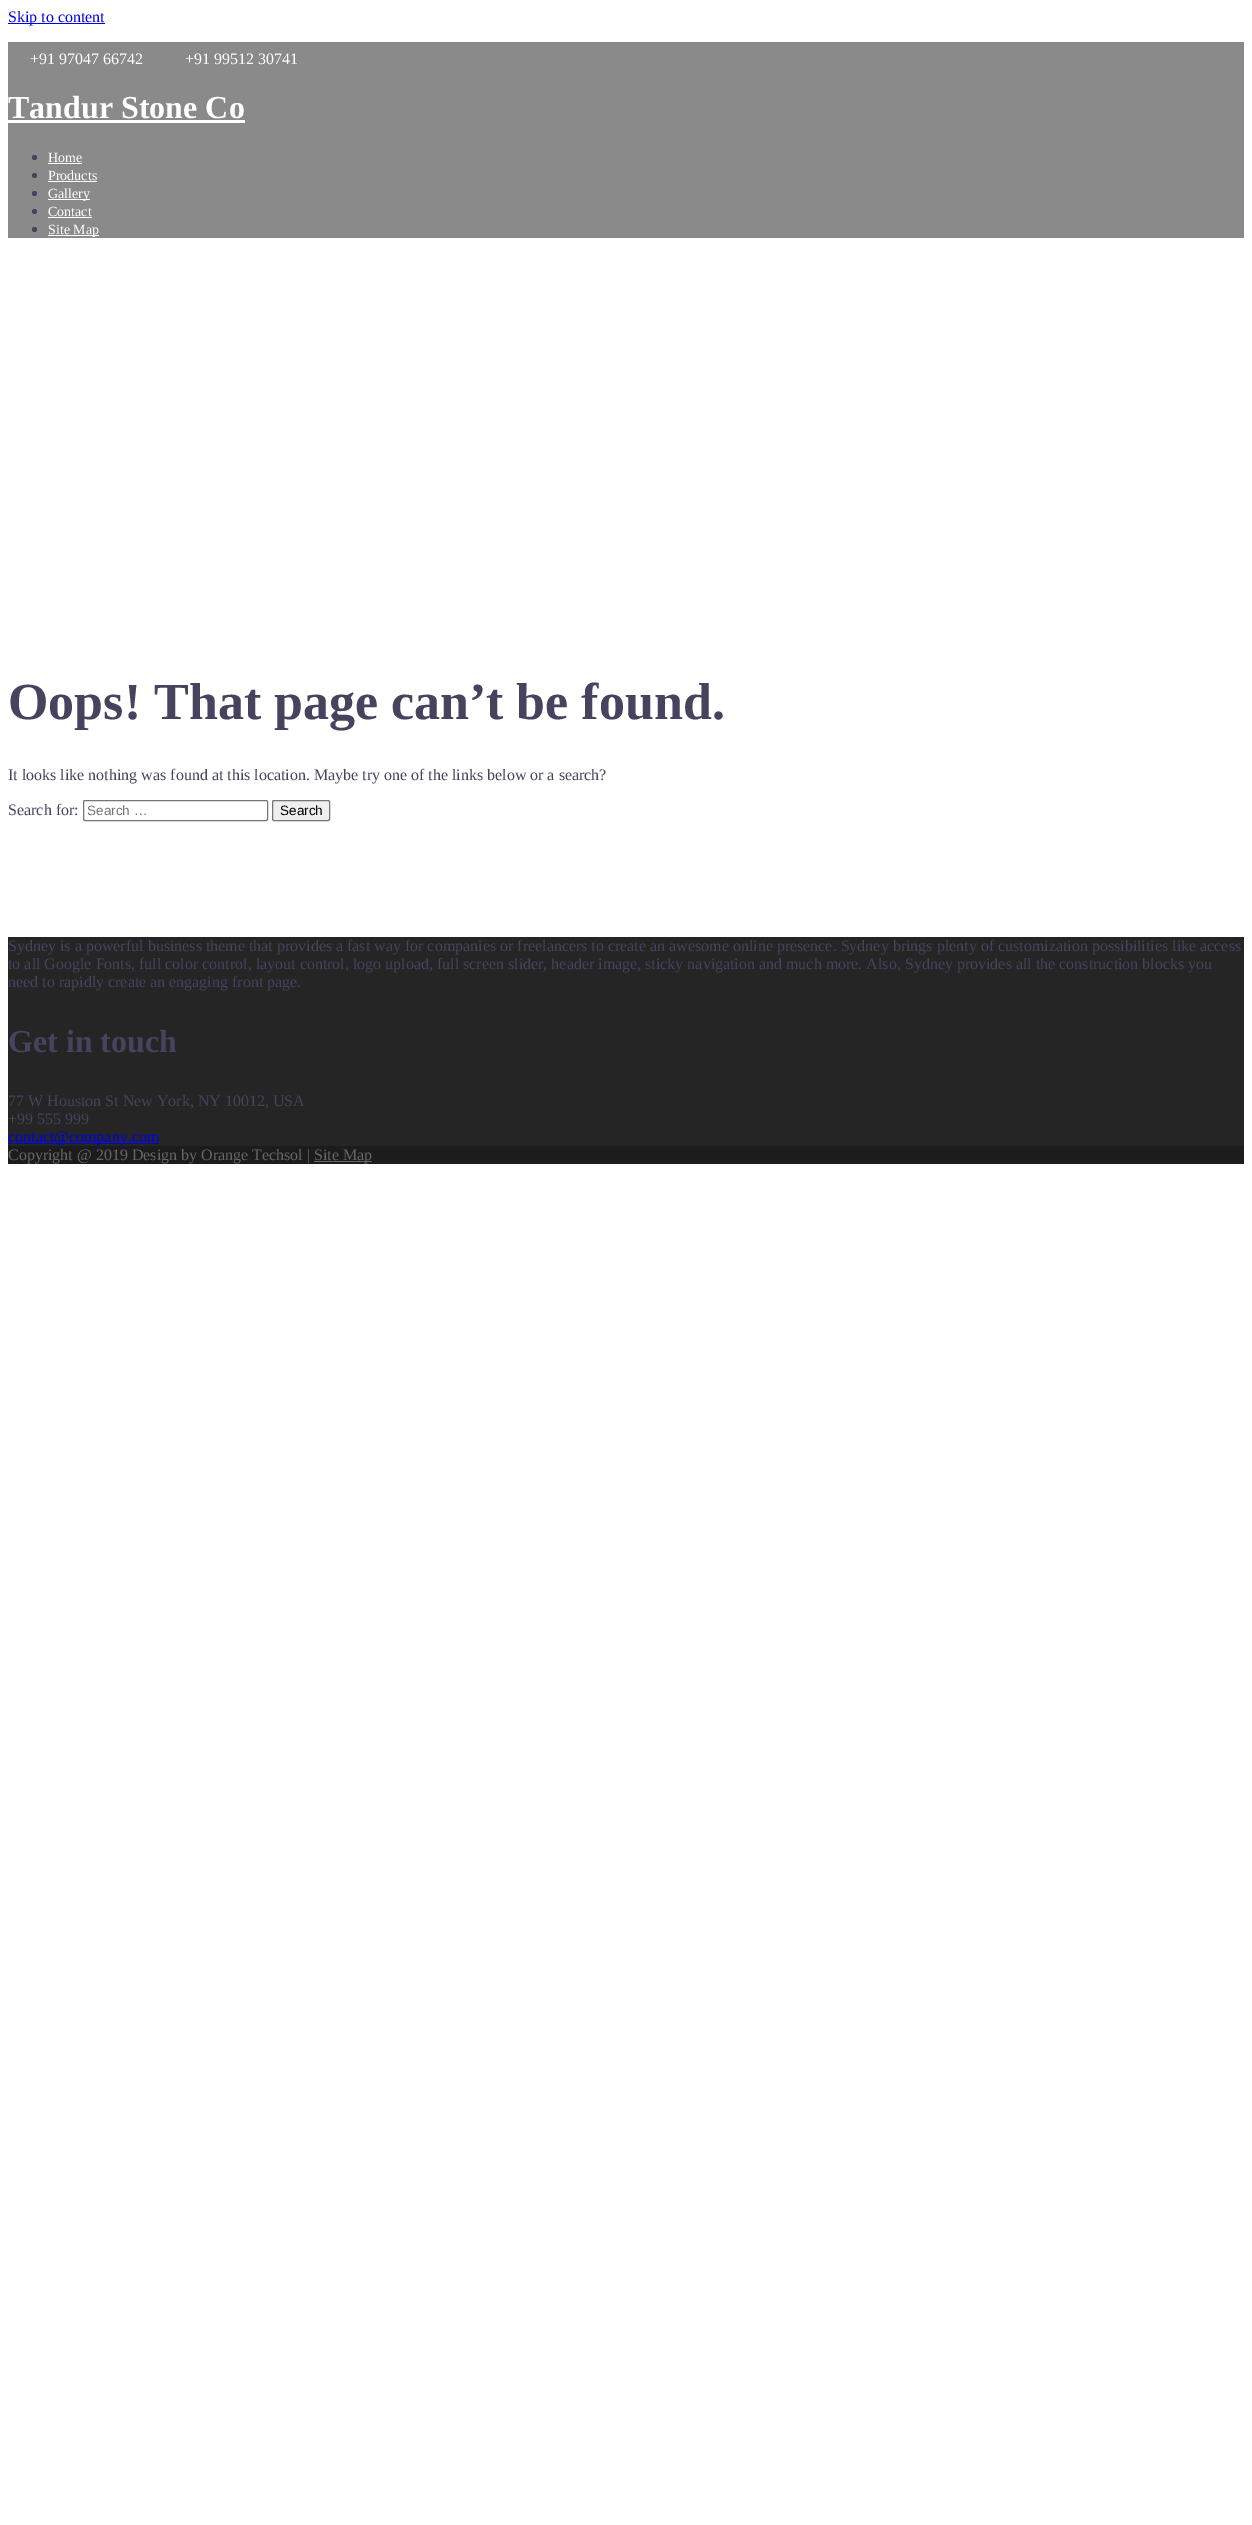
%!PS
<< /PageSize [1252 2525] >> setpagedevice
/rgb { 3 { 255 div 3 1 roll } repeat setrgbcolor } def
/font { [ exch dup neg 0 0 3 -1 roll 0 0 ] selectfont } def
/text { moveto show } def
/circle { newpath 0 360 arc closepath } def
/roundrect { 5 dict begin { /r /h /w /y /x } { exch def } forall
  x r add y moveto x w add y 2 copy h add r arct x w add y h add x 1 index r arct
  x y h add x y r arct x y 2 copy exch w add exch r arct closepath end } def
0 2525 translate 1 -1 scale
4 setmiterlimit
255 255 255 rgb
0 0 1252 2525 rectfill
0 0 238 rgb
8 23 97 1 rectfill
138 138 138 rgb
8 42 1236 196 rectfill
255 255 255 rgb
8 120 237 3 rectfill
71 66 93 rgb
34.5 157.5 2.5 circle fill
255 255 255 rgb
48 163 34 1 rectfill
71 66 93 rgb
34.5 175.5 2.5 circle fill
255 255 255 rgb
48 181 49 1 rectfill
71 66 93 rgb
34.5 193.5 2.5 circle fill
255 255 255 rgb
48 199 42 1 rectfill
71 66 93 rgb
34.5 211.5 2.5 circle fill
255 255 255 rgb
48 217 44 1 rectfill
71 66 93 rgb
34.5 229.5 2.5 circle fill
255 255 255 rgb
48 235 51 1 rectfill
118 118 118 rgb
83.5 800.5 184 20 1.5 roundrect stroke
239 239 239 rgb
272.5 800.5 57 20 1.5 roundrect gsave fill grestore
118 118 118 rgb
stroke
37 37 37 rgb
8 937 1236 209 rectfill
0 0 238 rgb
8 1143 151 1 rectfill
28 28 28 rgb
8 1146 1236 18 rectfill
102 102 102 rgb
314 1161 58 1 rectfill
/LiberationSerif-Regular 16 font
0 0 238 rgb
(Skip to content) 8 22 text
255 255 255 rgb
(+91 97047 66742) 30 64 text
(+91 99512 30741) 185 64 text
/LiberationSerif-Bold 32 font
(Tandur Stone Co) 8 118 text
/LiberationSerif-Regular 14 font
(Home) 48 162 text
(Products) 48 180 text
(Gallery) 48 198 text
(Contact) 48 216 text
(Site Map) 48 234 text
/LiberationSerif-Bold 52 font
71 66 93 rgb
(Oops! That page can’t be found.) 8 719 text
/LiberationSerif-Regular 16 font
(It looks like nothing was found at this location. Maybe try one of the links below or a search?) 8 780 text
(Search for:) 8 815 text
/LiberationSans-Regular 13.5 font
117 117 117 rgb
(Search …) 87 815 text
0 0 0 rgb
(Search) 280 815 text
/LiberationSerif-Regular 16 font
71 66 93 rgb
(Sydney is a powerful business theme that provides a fast way for companies or freelancers to create an awesome online presence. Sydney brings plenty of customization possibilities like access) 8 951 text
(to all Google Fonts, full color control, layout control, logo upload, full screen slider, header image, sticky navigation and much more. Also, Sydney provides all the construction blocks you) 8 969 text
(need to rapidly create an engaging front page.) 8 987 text
/LiberationSerif-Bold 32 font
(Get in touch) 8 1052 text
/LiberationSerif-Regular 16 font
(77 W Houston St New York, NY 10012, USA) 8 1106 text
(+99 555 999) 8 1124 text
0 0 238 rgb
(contact@company.com) 8 1142 text
102 102 102 rgb
(Copyright @ 2019 Design by Orange Techsol |) 8 1160 text
(Site Map) 314 1160 text
showpage
